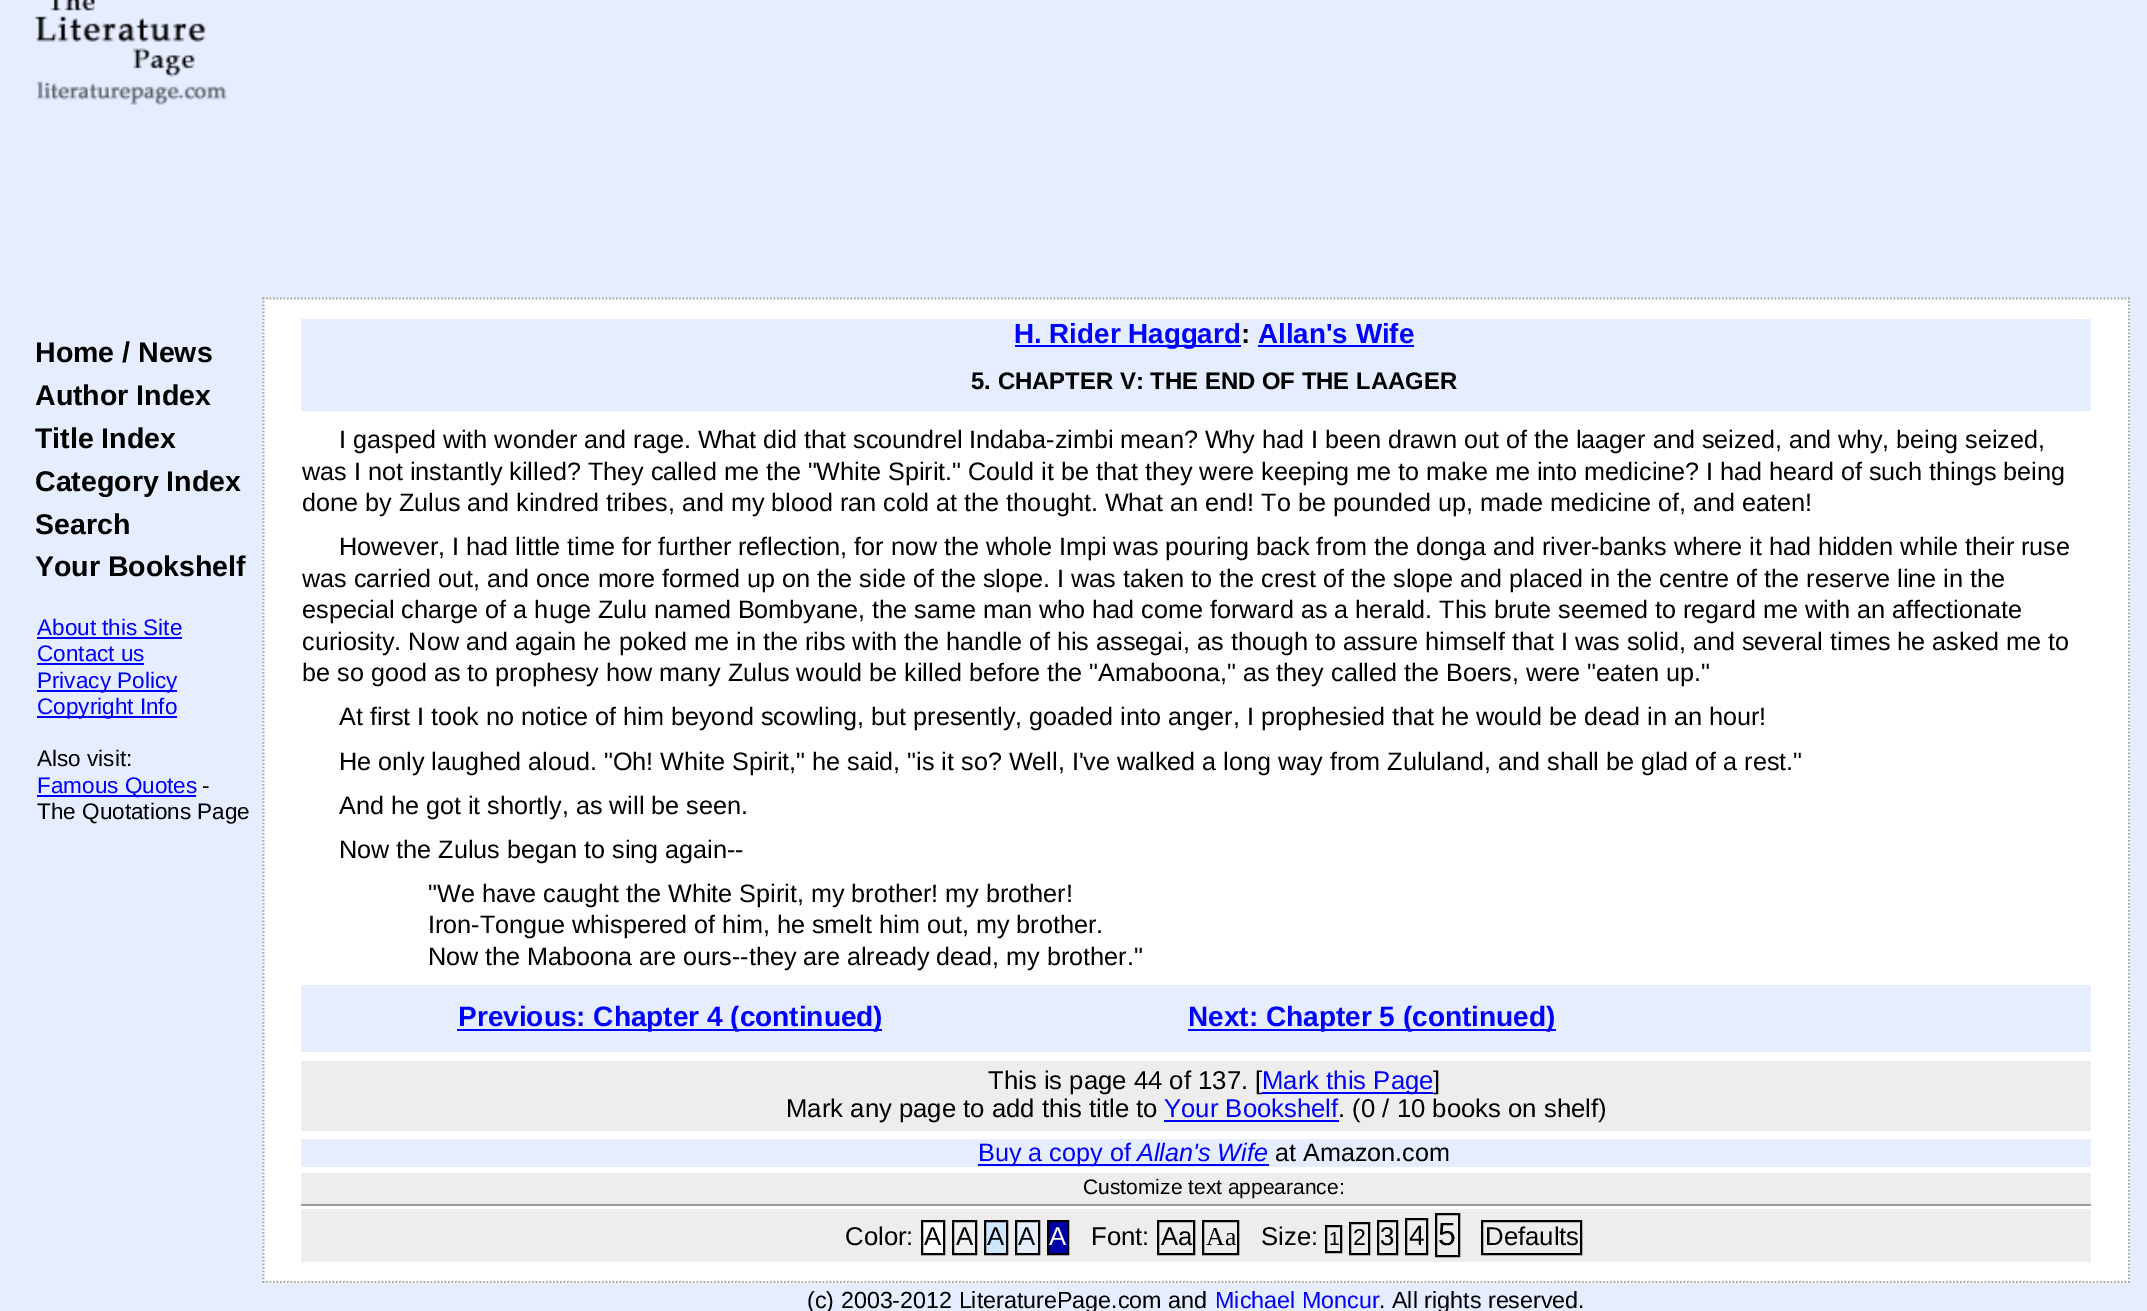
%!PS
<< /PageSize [2147 1311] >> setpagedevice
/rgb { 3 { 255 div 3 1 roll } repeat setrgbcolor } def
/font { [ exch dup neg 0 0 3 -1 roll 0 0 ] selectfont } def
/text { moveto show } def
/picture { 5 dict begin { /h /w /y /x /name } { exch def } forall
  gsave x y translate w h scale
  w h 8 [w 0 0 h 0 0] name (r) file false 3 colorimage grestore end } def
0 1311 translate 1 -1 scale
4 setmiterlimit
230 237 255 rgb
0 0 2147 1311 rectfill
(img_01.rgb) 34 0 194 105 picture
0 0 255 rgb
37 637 145 2 rectfill
37 663 107 2 rectfill
37 690 140 2 rectfill
37 716 140 2 rectfill
37 795 159 2 rectfill
255 255 255 rgb
263 298 1867 985 rectfill
166 173 159 rgb
1.8 setlinewidth
[1.75 1.75] 0 setdash
262.5 298.5 moveto 1867.5 0 rlineto stroke
2129 297.5 moveto 0 985.5 rlineto stroke
262.5 1282 moveto 1867.5 0 rlineto stroke
263.5 297.5 moveto 0 985.5 rlineto stroke
230 237 255 rgb
301 319 1790 92 rectfill
0 0 255 rgb
1015 345 226 2 rectfill
1258 345 156 2 rectfill
230 237 255 rgb
301 985 1790 67 rectfill
0 0 255 rgb
457 1029 425 2 rectfill
1188 1029 368 2 rectfill
237 237 237 rgb
301 1061 1790 70 rectfill
0 0 255 rgb
1262 1092 171 2 rectfill
1164 1120 175 2 rectfill
230 237 255 rgb
301 1139 1790 28 rectfill
0 0 255 rgb
978 1164 291 2 rectfill
237 237 237 rgb
301 1173 1790 31 rectfill
153 153 153 rgb
301 1204 1790 2 rectfill
237 237 237 rgb
301 1209 1790 53 rectfill
255 255 255 rgb
922 1221 moveto 22 0 rlineto 0 33 rlineto -22 0 rlineto closepath gsave fill grestore
0 0 0 rgb
2 setlinewidth
[] 0 setdash
stroke
240 240 240 rgb
953 1221 moveto 23 0 rlineto 0 33 rlineto -23 0 rlineto closepath gsave fill grestore
0 0 0 rgb
stroke
206 231 255 rgb
985 1221 moveto 22 0 rlineto 0 33 rlineto -22 0 rlineto closepath gsave fill grestore
0 0 0 rgb
stroke
230 237 255 rgb
1016 1221 moveto 23 0 rlineto 0 33 rlineto -23 0 rlineto closepath gsave fill grestore
0 0 0 rgb
stroke
0 0 170 rgb
1048 1221 moveto 20 0 rlineto 0 33 rlineto -20 0 rlineto closepath gsave fill grestore
0 0 0 rgb
stroke
1158 1221 36 33 rectstroke
1203 1221 35 33 rectstroke
1326 1226 15 26 rectstroke
1350 1223 19 31 rectstroke
1378 1221 19 33 rectstroke
1406 1219 21 35 rectstroke
1436 1214 23 42 rectstroke
1482 1221 99 33 rectstroke
/LiberationSans-Bold 28.5 font
(Home / News) 35 362 text
(Author Index) 35 405 text
(Title Index) 35 448 text
(Category Index) 35 491 text
(Search) 35 534 text
(Your Bookshelf) 35 576 text
/LiberationSans-Regular 22.5 font
0 0 255 rgb
(About this Site) 37 635 text
(Contact us) 37 661 text
(Privacy Policy) 37 688 text
(Copyright Info) 37 714 text
0 0 0 rgb
(Also visit:) 37 766 text
0 0 255 rgb
(Famous Quotes) 37 793 text
0 0 0 rgb
(-) 202 793 text
(The Quotations Page) 37 819 text
/LiberationSans-Bold 27.75 font
0 0 255 rgb
(H. Rider Haggard) 1014 343 text
0 0 0 rgb
(:) 1241 343 text
0 0 255 rgb
(Allan's Wife) 1258 343 text
/LiberationSans-Bold 23.9 font
0 0 0 rgb
(5. CHAPTER V: THE END OF THE LAAGER) 971 389 text
/LiberationSans-Regular 25.2 font
(I gasped with wonder and rage. What did that scoundrel Indaba-zimbi mean? Why had I been drawn out of the laager and seized, and why, being seized,) 339 448 text
(was I not instantly killed? They called me the "White Spirit." Could it be that they were keeping me to make me into medicine? I had heard of such things being) 302 480 text
(done by Zulus and kindred tribes, and my blood ran cold at the thought. What an end! To be pounded up, made medicine of, and eaten!) 302 511 text
(However, I had little time for further reflection, for now the whole Impi was pouring back from the donga and river-banks where it had hidden while their ruse) 339 555 text
(was carried out, and once more formed up on the side of the slope. I was taken to the crest of the slope and placed in the centre of the reserve line in the) 302 587 text
(especial charge of a huge Zulu named Bombyane, the same man who had come forward as a herald. This brute seemed to regard me with an affectionate) 302 618 text
(curiosity. Now and again he poked me in the ribs with the handle of his assegai, as though to assure himself that I was solid, and several times he asked me to) 302 650 text
(be so good as to prophesy how many Zulus would be killed before the "Amaboona," as they called the Boers, were "eaten up.") 302 681 text
(At first I took no notice of him beyond scowling, but presently, goaded into anger, I prophesied that he would be dead in an hour!) 339 725 text
(He only laughed aloud. "Oh! White Spirit," he said, "is it so? Well, I've walked a long way from Zululand, and shall be glad of a rest.") 339 770 text
(And he got it shortly, as will be seen.) 339 814 text
(Now the Zulus began to sing again--) 339 858 text
("We have caught the White Spirit, my brother! my brother!) 428 902 text
(Iron-Tongue whispered of him, he smelt him out, my brother.) 428 933 text
(Now the Maboona are ours--they are already dead, my brother.") 428 965 text
/LiberationSans-Bold 28 font
0 0 255 rgb
(Previous: Chapter 4 \(continued\)) 458 1026 text
(Next: Chapter 5 \(continued\)) 1188 1026 text
/LiberationSans-Regular 25.7 font
0 0 0 rgb
(This is page 44 of 137. [) 988 1089 text
0 0 255 rgb
(Mark this Page) 1262 1089 text
0 0 0 rgb
(]) 1433 1089 text
(Mark any page to add this title to) 786 1117 text
0 0 255 rgb
(Your Bookshelf) 1164 1117 text
0 0 0 rgb
(. \(0 / 10 books on shelf\)) 1338 1117 text
/LiberationSans-Regular 25.2 font
0 0 255 rgb
(Buy a copy of) 978 1161 text
/LiberationSans-Italic 25.2 font
(Allan's Wife) 1137 1161 text
/LiberationSans-Regular 25.2 font
0 0 0 rgb
(at Amazon.com) 1275 1161 text
/LiberationSans-Regular 21 font
(Customize text appearance:) 1083 1194 text
/LiberationSans-Regular 25.7 font
(Color:) 845 1245 text
(A) 924 1245 text
(A) 956 1245 text
(A) 987 1245 text
(A) 1018 1245 text
255 255 255 rgb
(A) 1049 1245 text
0 0 0 rgb
(Font:) 1091 1245 text
(Aa) 1161 1245 text
/LiberationSerif-Regular 25.7 font
(Aa) 1206 1245 text
/LiberationSans-Regular 25.7 font
(Size:) 1261 1245 text
/LiberationSans-Regular 19 font
(1) 1329 1245 text
/LiberationSans-Regular 23 font
(2) 1353 1245 text
/LiberationSans-Regular 25.7 font
(3) 1380 1245 text
/LiberationSans-Regular 28 font
(4) 1409 1245 text
/LiberationSans-Regular 32 font
(5) 1438 1245 text
/LiberationSans-Regular 25.7 font
(Defaults) 1485 1245 text
/LiberationSans-Regular 23.3 font
(\(c\) 2003-2012 LiteraturePage.com and) 807 1308 text
0 0 255 rgb
(Michael Moncur) 1215 1308 text
0 0 0 rgb
(. All rights reserved.) 1379 1308 text
showpage
